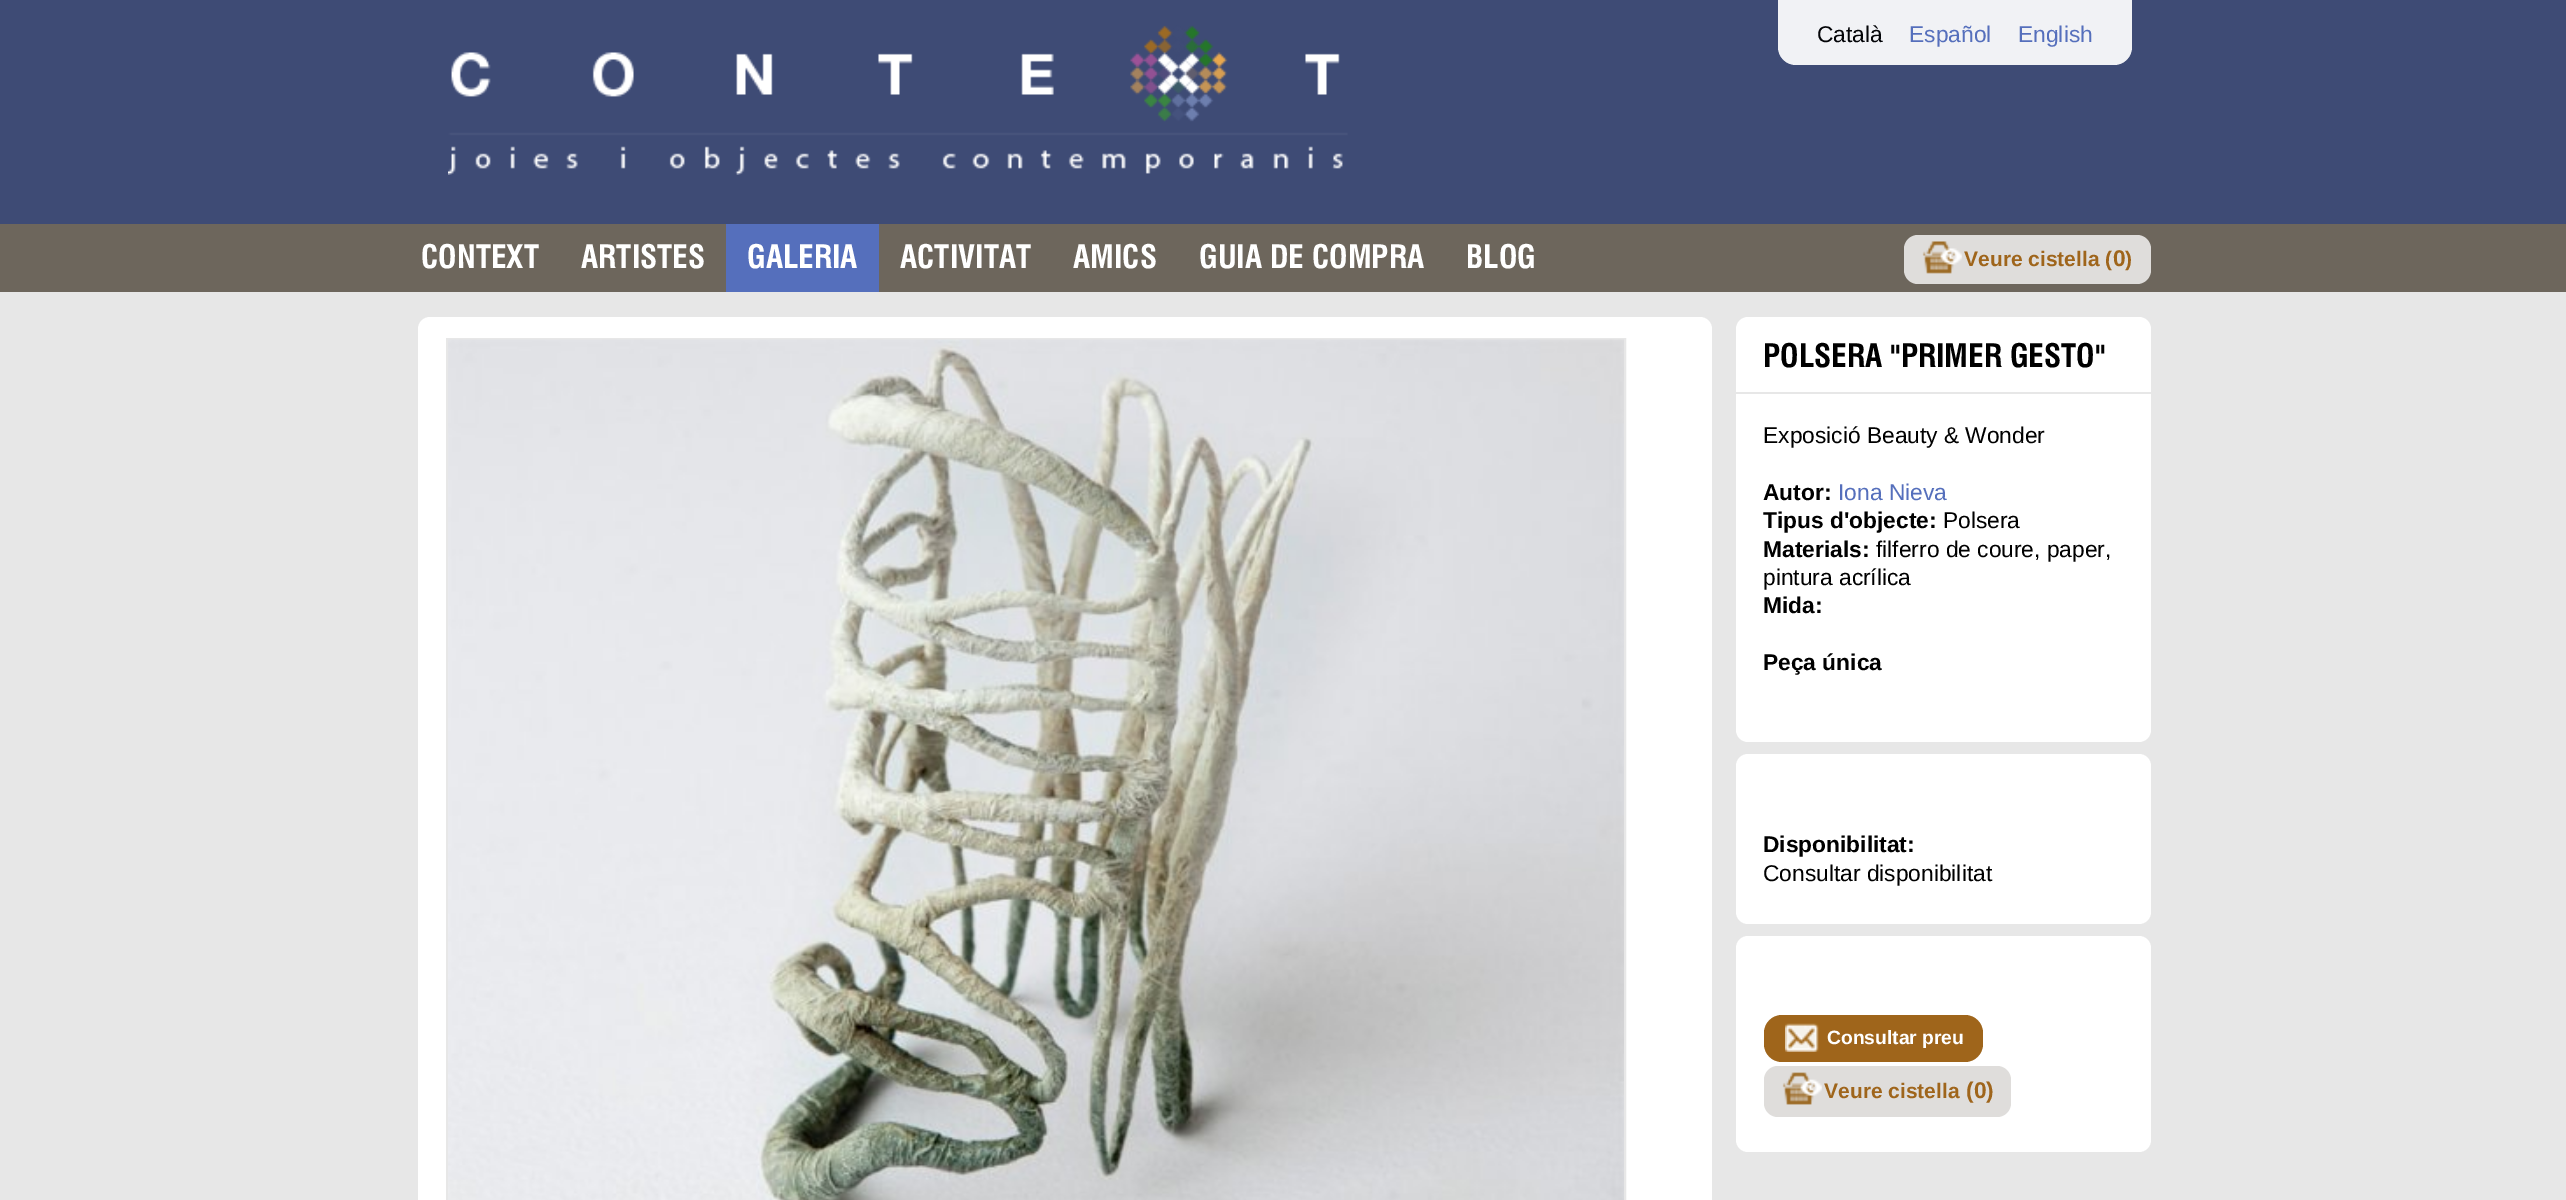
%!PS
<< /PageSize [2566 1200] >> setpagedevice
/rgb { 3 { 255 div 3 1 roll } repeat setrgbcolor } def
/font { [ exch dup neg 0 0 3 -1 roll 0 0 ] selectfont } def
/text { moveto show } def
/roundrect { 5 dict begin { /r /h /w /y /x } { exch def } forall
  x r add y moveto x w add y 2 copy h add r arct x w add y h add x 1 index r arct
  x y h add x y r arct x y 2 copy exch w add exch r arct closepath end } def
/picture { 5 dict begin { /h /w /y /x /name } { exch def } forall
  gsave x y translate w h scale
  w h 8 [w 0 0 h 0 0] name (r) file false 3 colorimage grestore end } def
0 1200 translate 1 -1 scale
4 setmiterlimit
231 231 231 rgb
0 0 2566 1200 rectfill
62 75 117 rgb
0 0 2566 224 rectfill
(img_01.rgb) 448 25 900 150 picture
241 242 245 rgb
1778 0 moveto 354 0 rlineto 0 47 rlineto 0 10 -8 18 -18 18 rcurveto -318 0 rlineto -10 0 -18 -8 -18 -18 rcurveto closepath fill
109 102 92 rgb
0 224 2566 68 rectfill
85 111 188 rgb
726 224 153 68 rectfill
223 221 219 rgb
1904 235 247 49 14 roundrect fill
(img_02.rgb) 1922 241 40 33 picture
255 255 255 rgb
418 317 1294 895 12 roundrect fill
231 231 231 rgb
2 setlinewidth
447 339 1178 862 rectstroke
(img_03.rgb) 448 339 1176 861 picture
255 255 255 rgb
1748 317 moveto 391 0 rlineto 6.5 0 12 5.5 12 12 rcurveto 0 63 rlineto -415 0 rlineto 0 -63 rlineto 0 -6.5 5.5 -12 12 -12 rcurveto closepath fill
1736 394 moveto 415 0 rlineto 0 336 rlineto 0 6.5 -5.5 12 -12 12 rcurveto -391 0 rlineto -6.5 0 -12 -5.5 -12 -12 rcurveto closepath fill
1736 754 415 170 12 roundrect fill
1736 936 415 216 12 roundrect fill
159 101 27 rgb
1764 1015 219 47 18 roundrect fill
(img_04.rgb) 1785 1023 34 29 picture
223 221 219 rgb
1764 1066 247 51 14 roundrect fill
(img_05.rgb) 1782 1072 40 33 picture
/LiberationSans-Regular 22.75 font
4 5 8 rgb
(Català) 1817 42 text
85 111 188 rgb
(Español) 1909 42 text
(English) 2018 42 text
/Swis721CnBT-Bold 31.5 font
255 255 255 rgb
(CONTEXT) 421 268 text
(ARTISTES) 581 268 text
(GALERIA) 747 268 text
(ACTIVITAT) 900 268 text
(AMICS) 1073 268 text
(GUIA DE COMPRA) 1199 268 text
(BLOG) 1466 268 text
/LiberationSans-Bold 21 font
159 101 27 rgb
(Veure cistella \() 1964 266 text
/LiberationSans-Bold 22.75 font
(0) 2113 266 text
/LiberationSans-Bold 21 font
(\)) 2125 266 text
/Swis721CnBT-Bold 31.5 font
0 0 0 rgb
(POLSERA "PRIMER GESTO") 1763 367 text
/LiberationSans-Regular 22.75 font
(Exposició Beauty & Wonder) 1763 443 text
/LiberationSans-Bold 22.75 font
(Autor:) 1763 500 text
/LiberationSans-Regular 22.75 font
85 111 188 rgb
(Iona Nieva) 1838 500 text
/LiberationSans-Bold 22.75 font
0 0 0 rgb
(Tipus d'objecte:) 1763 528 text
/LiberationSans-Regular 22.75 font
(Polsera) 1943 528 text
/LiberationSans-Bold 22.75 font
(Materials:) 1763 557 text
/LiberationSans-Regular 22.75 font
(filferro de coure, paper,) 1876 557 text
(pintura acrílica) 1763 585 text
/LiberationSans-Bold 22.75 font
(Mida:) 1763 613 text
(Peça única) 1763 670 text
(Disponibilitat:) 1763 852 text
/LiberationSans-Regular 22.75 font
(Consultar disponibilitat) 1763 881 text
/LiberationSans-Bold 19.25 font
255 255 255 rgb
(Consultar preu) 1827 1044 text
/LiberationSans-Bold 21 font
159 101 27 rgb
(Veure cistella) 1824 1098 text
/LiberationSans-Bold 22.75 font
(\(0\)) 1966 1098 text
showpage
